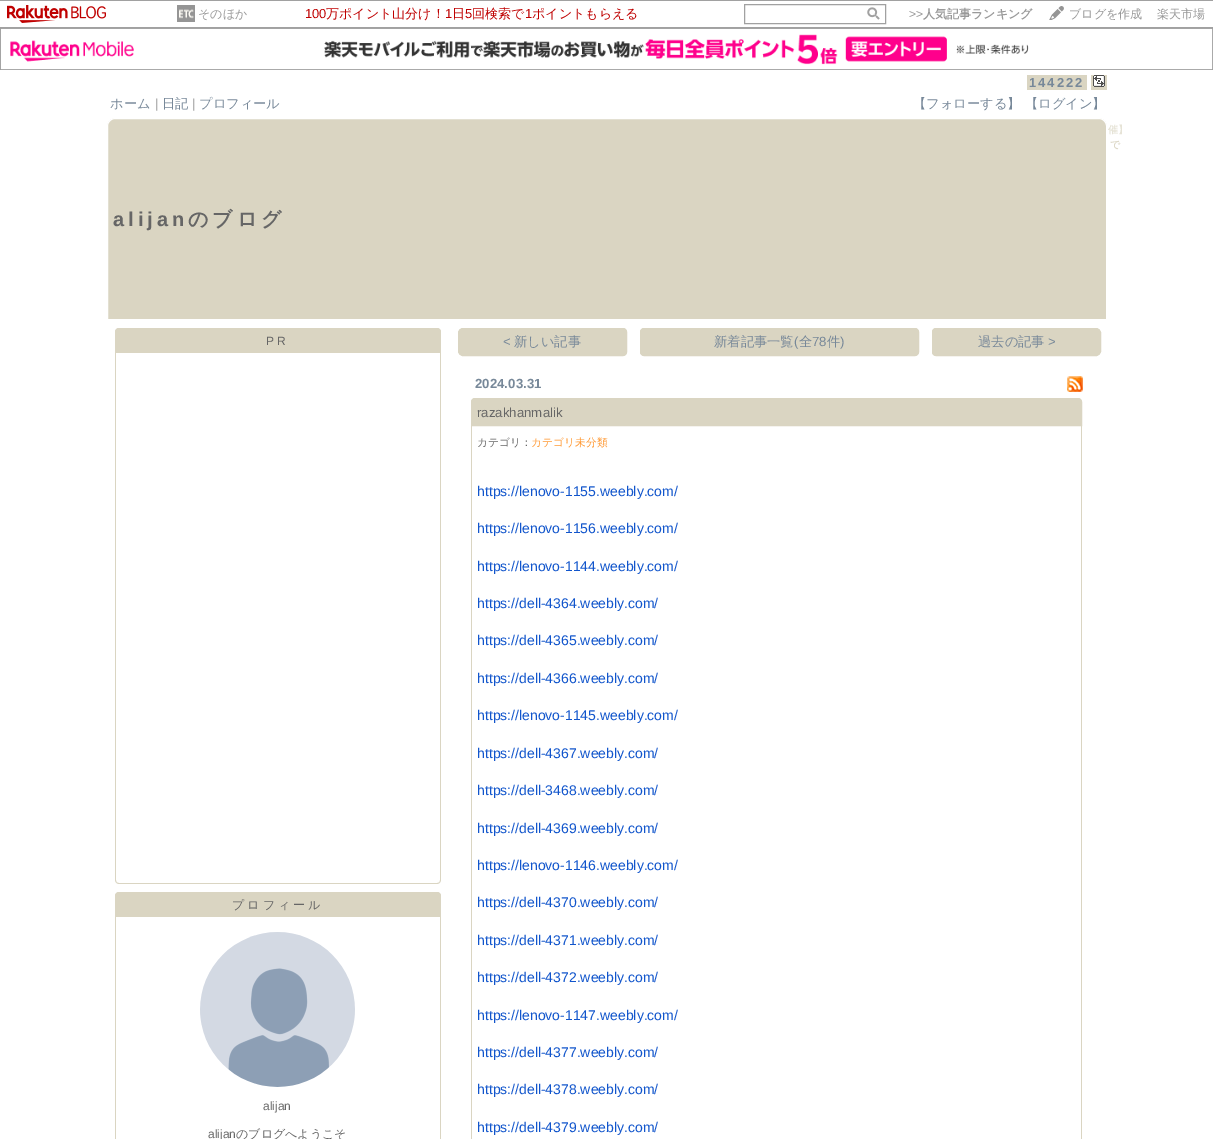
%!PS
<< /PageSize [1213 1139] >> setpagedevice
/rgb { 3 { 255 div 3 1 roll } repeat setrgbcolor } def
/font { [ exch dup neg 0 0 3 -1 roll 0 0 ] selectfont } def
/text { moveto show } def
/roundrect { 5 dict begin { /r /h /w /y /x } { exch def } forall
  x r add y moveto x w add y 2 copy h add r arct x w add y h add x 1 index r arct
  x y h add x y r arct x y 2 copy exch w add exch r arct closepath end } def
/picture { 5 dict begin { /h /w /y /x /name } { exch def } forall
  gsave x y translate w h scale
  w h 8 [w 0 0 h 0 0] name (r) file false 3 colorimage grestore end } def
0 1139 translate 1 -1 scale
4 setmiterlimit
255 255 255 rgb
0 0 1213 1139 rectfill
161 161 161 rgb
0 0 1213 1 rectfill
0 27 1213 1 rectfill
(img_01.rgb) 7 5 99 18 picture
(img_02.rgb) 177 5 18 17 picture
744.5 4.5 141 19 rectstroke
(img_03.rgb) 867 7 13 13 picture
(img_04.rgb) 1049 6 15 14 picture
(img_05.rgb) 0 28 1213 42 picture
218 213 194 rgb
1091 75 16 15 rectfill
1027 75 60 15 rectfill
(img_06.rgb) 1093 75 12 12 picture
115 118.5 moveto 984 0 rlineto 4 0 7.5 3.5 7.5 7.5 rcurveto 0 193.5 rlineto -999 0 rlineto 0 -193.5 rlineto 0 -4 3.5 -7.5 7.5 -7.5 rcurveto closepath gsave fill grestore
255 255 255 rgb
stroke
218 213 194 rgb
119 328 moveto 318 0 rlineto 2 0 4 2 4 4 rcurveto 0 21 rlineto -326 0 rlineto 0 -21 rlineto 0 -2 2 -4 4 -4 rcurveto closepath fill
119 328 moveto 318 0 rlineto 2 0 4 2 4 4 rcurveto 0 21 rlineto -326 0 rlineto 0 -21 rlineto 0 -2 2 -4 4 -4 rcurveto closepath 119 329 moveto 318 0 rlineto 2 0 3 1 3 3 rcurveto 0 21 rlineto -324 0 rlineto 0 -21 rlineto 0 -2 1 -3 3 -3 rcurveto closepath eofill
115 353 moveto 326 0 rlineto 0 527 rlineto 0 2 -2 4 -4 4 rcurveto -318 0 rlineto -2 0 -4 -2 -4 -4 rcurveto closepath 116 353 moveto 324 0 rlineto 0 527 rlineto 0 2 -1 3 -3 3 rcurveto -318 0 rlineto -2 0 -3 -1 -3 -3 rcurveto closepath eofill
119 892 moveto 318 0 rlineto 2 0 4 2 4 4 rcurveto 0 21 rlineto -326 0 rlineto 0 -21 rlineto 0 -2 2 -4 4 -4 rcurveto closepath fill
119 892 moveto 318 0 rlineto 2 0 4 2 4 4 rcurveto 0 21 rlineto -326 0 rlineto 0 -21 rlineto 0 -2 2 -4 4 -4 rcurveto closepath 119 893 moveto 318 0 rlineto 2 0 3 1 3 3 rcurveto 0 21 rlineto -324 0 rlineto 0 -21 rlineto 0 -2 1 -3 3 -3 rcurveto closepath eofill
115 917 moveto 326 0 rlineto 0 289 rlineto 0 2 -2 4 -4 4 rcurveto -318 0 rlineto -2 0 -4 -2 -4 -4 rcurveto closepath 116 917 moveto 324 0 rlineto 0 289 rlineto 0 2 -1 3 -3 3 rcurveto -318 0 rlineto -2 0 -3 -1 -3 -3 rcurveto closepath eofill
(img_07.rgb) 200 932 155 155 picture
463 328.5 moveto 160 0 rlineto 2 0 3.5 1.5 3.5 3.5 rcurveto 0 20 rlineto 0 2 -1.5 3.5 -3.5 3.5 rcurveto -160 0 rlineto -2.5 0 -4.5 -2 -4.5 -4.5 rcurveto 0 -18 rlineto 0 -2.5 2 -4.5 4.5 -4.5 rcurveto closepath gsave fill grestore
stroke
640.5 328.5 278 27 3.5 roundrect gsave fill grestore
stroke
936 328.5 moveto 160 0 rlineto 2.5 0 4.5 2 4.5 4.5 rcurveto 0 18 rlineto 0 2.5 -2 4.5 -4.5 4.5 rcurveto -160 0 rlineto -2 0 -3.5 -1.5 -3.5 -3.5 rcurveto 0 -20 rlineto 0 -2 1.5 -3.5 3.5 -3.5 rcurveto closepath gsave fill grestore
stroke
(img_08.rgb) 1067 376 16 16 picture
475 398.5 moveto 603 0 rlineto 2 0 3.5 1.5 3.5 3.5 rcurveto 0 23.5 rlineto -610 0 rlineto 0 -23.5 rlineto 0 -2 1.5 -3.5 3.5 -3.5 rcurveto closepath gsave fill grestore
stroke
471 426 moveto 611 0 rlineto 0 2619 rlineto 0 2 -2 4 -4 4 rcurveto -603 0 rlineto -2 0 -4 -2 -4 -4 rcurveto closepath 472 426 moveto 609 0 rlineto 0 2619 rlineto 0 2 -1 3 -3 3 rcurveto -603 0 rlineto -2 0 -3 -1 -3 -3 rcurveto closepath eofill
/WenQuanYiZenHei-Medium 12 font
153 153 153 rgb
(そのほか) 198 18 text
/LiberationSans-Regular 13 font
191 0 0 rgb
(100) 305 18 text
/WenQuanYiZenHei-Medium 13 font
(万ポイント山分け！) 326 18 text
/LiberationSans-Regular 13 font
(1) 445 18 text
/WenQuanYiZenHei-Medium 13 font
(日) 452 18 text
/LiberationSans-Regular 13 font
(5) 465 18 text
/WenQuanYiZenHei-Medium 13 font
(回検索で) 472 18 text
/LiberationSans-Regular 13 font
(1) 525 18 text
/WenQuanYiZenHei-Medium 13 font
(ポイントもらえる) 532 18 text
/LiberationSans-Regular 12 font
153 153 153 rgb
(>>) 909 18 text
/WenQuanYiZenHei-Bold 12 font
(人気記事ランキング) 923 18 text
/WenQuanYiZenHei-Medium 12 font
(ブログを作成) 1069 18 text
(楽天市場) 1157 18 text
/LiberationSans-Bold 13 font
119 136 153 rgb
1029 87 moveto 2 0 (144222) ashow
/WenQuanYiZenHei-Medium 13.25 font
(ホーム) 110 108 text
/LiberationSans-Regular 13.25 font
153 153 153 rgb
(|) 155 108 text
/WenQuanYiZenHei-Medium 13.25 font
119 136 153 rgb
(日記) 162 108 text
/LiberationSans-Regular 13.25 font
153 153 153 rgb
(|) 192 108 text
/WenQuanYiZenHei-Medium 13.25 font
119 136 153 rgb
(プロフィール) 199 108 text
(【フォローする】) 913 108 text
(【ログイン】) 1025 108 text
/WenQuanYiZenHei-Bold 10 font
230 227 214 rgb
(催】) 1108 133 text
222 217 200 rgb
(で) 1110 148 text
/LiberationSans-Bold 20 font
102 102 102 rgb
113 226 moveto 4 0 (alijan) ashow
/WenQuanYiZenHei-Bold 20 font
188 226 moveto 4 0 (のブログ) ashow
/LiberationSans-Regular 12 font
266 345 moveto 3 0 (PR) ashow
/WenQuanYiZenHei-Medium 12 font
232 909 moveto 3 0 (プロフィール) ashow
/LiberationSans-Regular 12 font
(alijan) 263 1110 text
(alijan) 208 1138 text
/WenQuanYiZenHei-Medium 12 font
(のブログへようこそ) 236 1138 text
/LiberationSans-Regular 13.25 font
119 136 153 rgb
(<) 503 346 text
/WenQuanYiZenHei-Medium 13.25 font
(新しい記事) 514 346 text
(新着記事一覧) 714 346 text
/LiberationSans-Regular 13.25 font
(\() 794 346 text
/WenQuanYiZenHei-Medium 13.25 font
(全) 799 346 text
/LiberationSans-Regular 13.25 font
(78) 812 346 text
/WenQuanYiZenHei-Medium 13.25 font
(件) 827 346 text
/LiberationSans-Regular 13.25 font
(\)) 840 346 text
/WenQuanYiZenHei-Medium 13.25 font
(過去の記事) 978 346 text
/LiberationSans-Regular 13.25 font
(>) 1048 346 text
/LiberationSans-Bold 13.25 font
(2024.03.31) 475 388 text
/LiberationSans-Regular 13.25 font
102 102 102 rgb
(razakhanmalik) 477 417 text
/WenQuanYiZenHei-Medium 10.75 font
(カテゴリ：) 477 446 text
255 153 51 rgb
(カテゴリ未分類) 531 446 text
/LiberationSans-Regular 14 font
17 85 204 rgb
(https://lenovo-1155.weebly.com/) 477 496 text
(https://lenovo-1156.weebly.com/) 477 533 text
(https://lenovo-1144.weebly.com/) 477 571 text
(https://dell-4364.weebly.com/) 477 608 text
(https://dell-4365.weebly.com/) 477 645 text
(https://dell-4366.weebly.com/) 477 683 text
(https://lenovo-1145.weebly.com/) 477 720 text
(https://dell-4367.weebly.com/) 477 758 text
(https://dell-3468.weebly.com/) 477 795 text
(https://dell-4369.weebly.com/) 477 833 text
(https://lenovo-1146.weebly.com/) 477 870 text
(https://dell-4370.weebly.com/) 477 907 text
(https://dell-4371.weebly.com/) 477 945 text
(https://dell-4372.weebly.com/) 477 982 text
(https://lenovo-1147.weebly.com/) 477 1020 text
(https://dell-4377.weebly.com/) 477 1057 text
(https://dell-4378.weebly.com/) 477 1094 text
(https://dell-4379.weebly.com/) 477 1132 text
showpage
